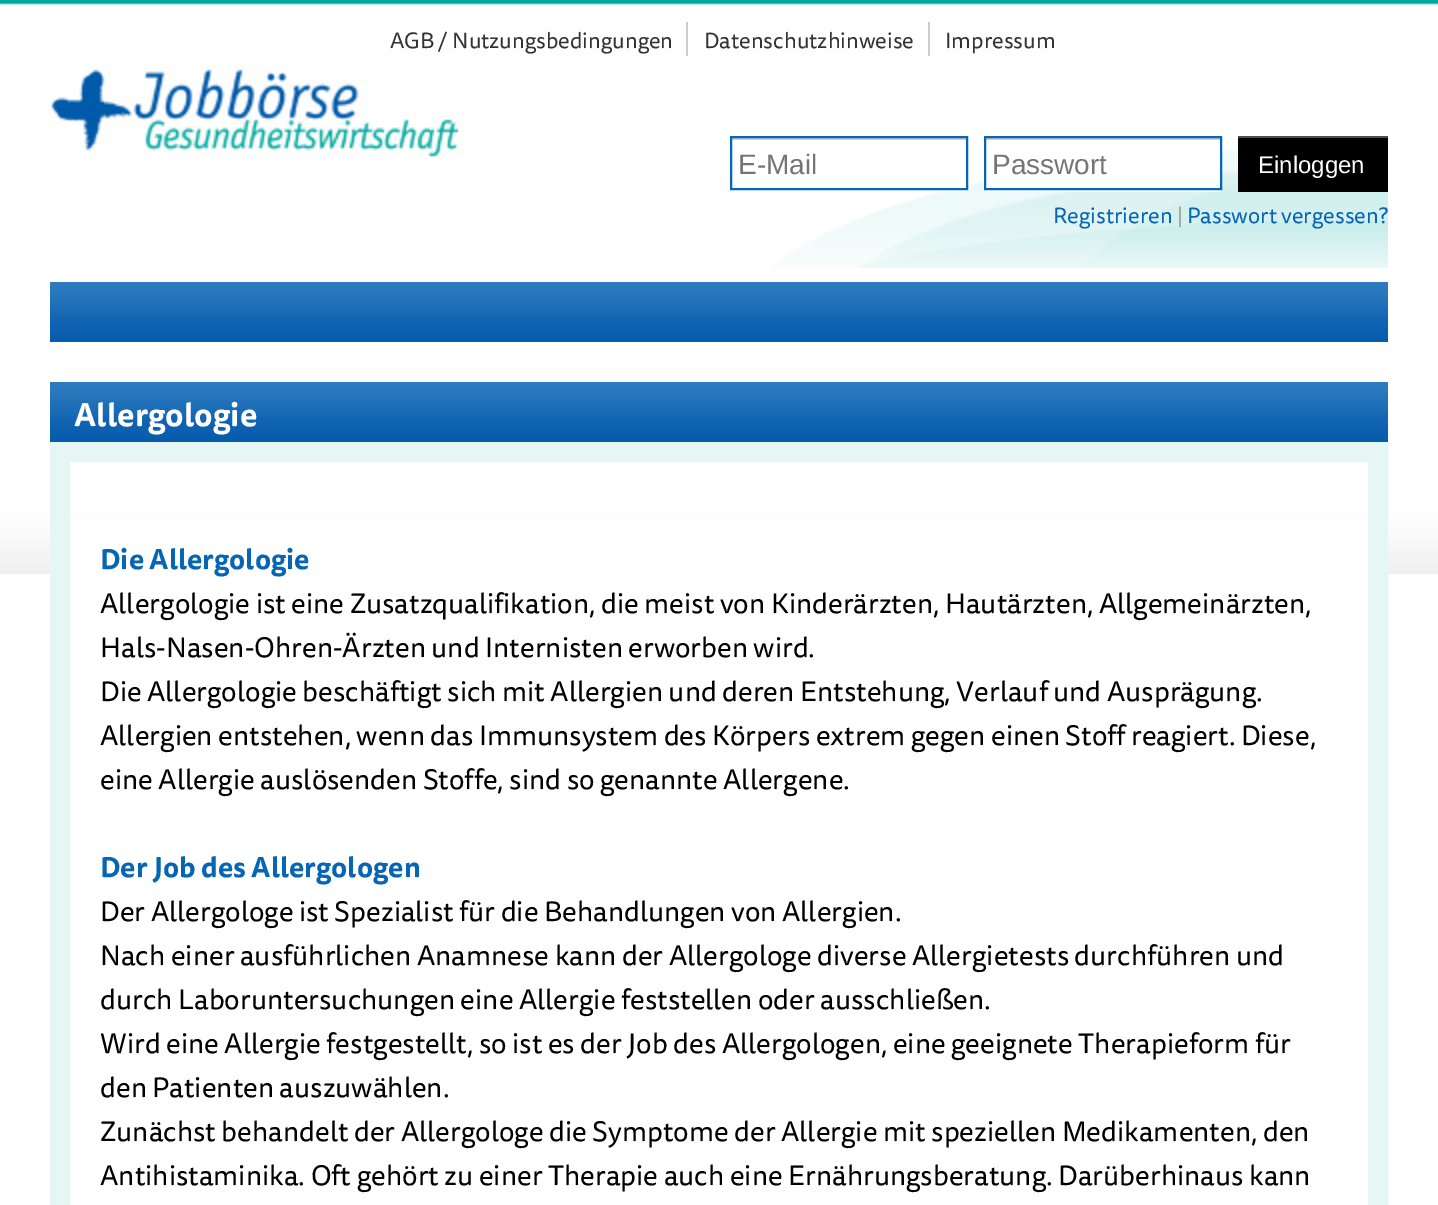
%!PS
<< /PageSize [1438 1205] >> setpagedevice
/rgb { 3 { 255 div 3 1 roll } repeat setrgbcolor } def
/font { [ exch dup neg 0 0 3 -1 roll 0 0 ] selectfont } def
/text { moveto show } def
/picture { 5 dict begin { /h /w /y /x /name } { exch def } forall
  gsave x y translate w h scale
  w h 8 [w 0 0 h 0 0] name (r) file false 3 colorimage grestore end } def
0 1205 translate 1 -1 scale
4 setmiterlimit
255 255 255 rgb
0 0 1438 1205 rectfill
(img_01.rgb) 0 0 1438 574 picture
(img_02.rgb) 50 0 1338 268 picture
204 204 204 rgb
686 22 2 34 rectfill
928 22 2 34 rectfill
255 255 255 rgb
937 190 31 2 rectfill
953 185 13 3 rectfill
204 204 204 rgb
732 138 234 2 rectfill
6 101 181 rgb
2 setlinewidth
731 137 236 52 rectstroke
255 255 255 rgb
984 190 238 2 rectfill
986 150 234 38 rectfill
204 204 204 rgb
986 138 234 2 rectfill
6 101 181 rgb
985 137 236 52 rectstroke
0 0 0 rgb
1238 138 150 54 rectfill
77 77 77 rgb
1238 136 150 2 rectfill
gsave 50 282 moveto 1338 0 rlineto 0 60 rlineto -1338 0 rlineto closepath clip newpath
<< /ShadingType 2 /ColorSpace /DeviceRGB /Coords [719 282 719 342] /Extend [true true] /Function << /FunctionType 3 /Domain [0 1] /Functions [<< /FunctionType 2 /Domain [0 1] /C0 [0.184 0.486 0.753] /C1 [0.157 0.463 0.741] /N 1 >> << /FunctionType 2 /Domain [0 1] /C0 [0.157 0.463 0.741] /C1 [0.067 0.392 0.698] /N 1 >> << /FunctionType 2 /Domain [0 1] /C0 [0.067 0.392 0.698] /C1 [0.02 0.357 0.675] /N 1 >>] /Bounds [0.22 0.66] /Encode [0 1 0 1 0 1] >> >> shfill grestore
255 255 255 rgb
70 521 1298 53 rectfill
gsave 50 382 moveto 1338 0 rlineto 0 60 rlineto -1338 0 rlineto closepath clip newpath
<< /ShadingType 2 /ColorSpace /DeviceRGB /Coords [719 382 719 442] /Extend [true true] /Function << /FunctionType 3 /Domain [0 1] /Functions [<< /FunctionType 2 /Domain [0 1] /C0 [0.184 0.486 0.753] /C1 [0.157 0.463 0.741] /N 1 >> << /FunctionType 2 /Domain [0 1] /C0 [0.157 0.463 0.741] /C1 [0.067 0.392 0.698] /N 1 >> << /FunctionType 2 /Domain [0 1] /C0 [0.067 0.392 0.698] /C1 [0.02 0.357 0.675] /N 1 >>] /Bounds [0.22 0.66] /Encode [0 1 0 1 0 1] >> >> shfill grestore
230 246 245 rgb
20 setlinewidth
60 452 1318 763 rectstroke
/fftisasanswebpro-Regular 22 font
51 51 51 rgb
(AGB / Nutzungsbedingungen) 390 48 text
(Datenschutzhinweise) 704 48 text
(Impressum) 945 48 text
/LiberationSans-Regular 28 font
117 117 117 rgb
(E-Mail) 738 174 text
(Passwort) 992 174 text
/LiberationSans-Regular 24 font
255 255 255 rgb
(Einloggen) 1258 173 text
/fftisasanswebpro-Regular 22 font
6 101 181 rgb
(Registrieren) 1053 223 text
168 168 168 rgb
(|) 1177 223 text
6 101 181 rgb
(Passwort vergessen?) 1187 223 text
/fftisasanswebpro-Bold 32 font
255 255 255 rgb
(Allergologie) 74 426 text
/fftisasanswebpro-Bold 28 font
6 101 181 rgb
(Die Allergologie) 100 569 text
/fftisasanswebpro-Regular 28 font
0 0 0 rgb
(Allergologie ist eine Zusatzqualifikation, die meist von Kinderärzten, Hautärzten, Allgemeinärzten,) 100 613 text
(Hals-Nasen-Ohren-Ärzten und Internisten erworben wird.) 100 657 text
(Die Allergologie beschäftigt sich mit Allergien und deren Entstehung, Verlauf und Ausprägung.) 100 701 text
(Allergien entstehen, wenn das Immunsystem des Körpers extrem gegen einen Stoff reagiert. Diese,) 100 745 text
(eine Allergie auslösenden Stoffe, sind so genannte Allergene.) 100 789 text
/fftisasanswebpro-Bold 28 font
6 101 181 rgb
(Der Job des Allergologen) 100 877 text
/fftisasanswebpro-Regular 28 font
0 0 0 rgb
(Der Allergologe ist Spezialist für die Behandlungen von Allergien.) 100 921 text
(Nach einer ausführlichen Anamnese kann der Allergologe diverse Allergietests durchführen und) 100 965 text
(durch Laboruntersuchungen eine Allergie feststellen oder ausschließen.) 100 1009 text
(Wird eine Allergie festgestellt, so ist es der Job des Allergologen, eine geeignete Therapieform für) 100 1053 text
(den Patienten auszuwählen.) 100 1097 text
(Zunächst behandelt der Allergologe die Symptome der Allergie mit speziellen Medikamenten, den) 100 1141 text
(Antihistaminika. Oft gehört zu einer Therapie auch eine Ernährungsberatung. Darüberhinaus kann) 100 1185 text
showpage
